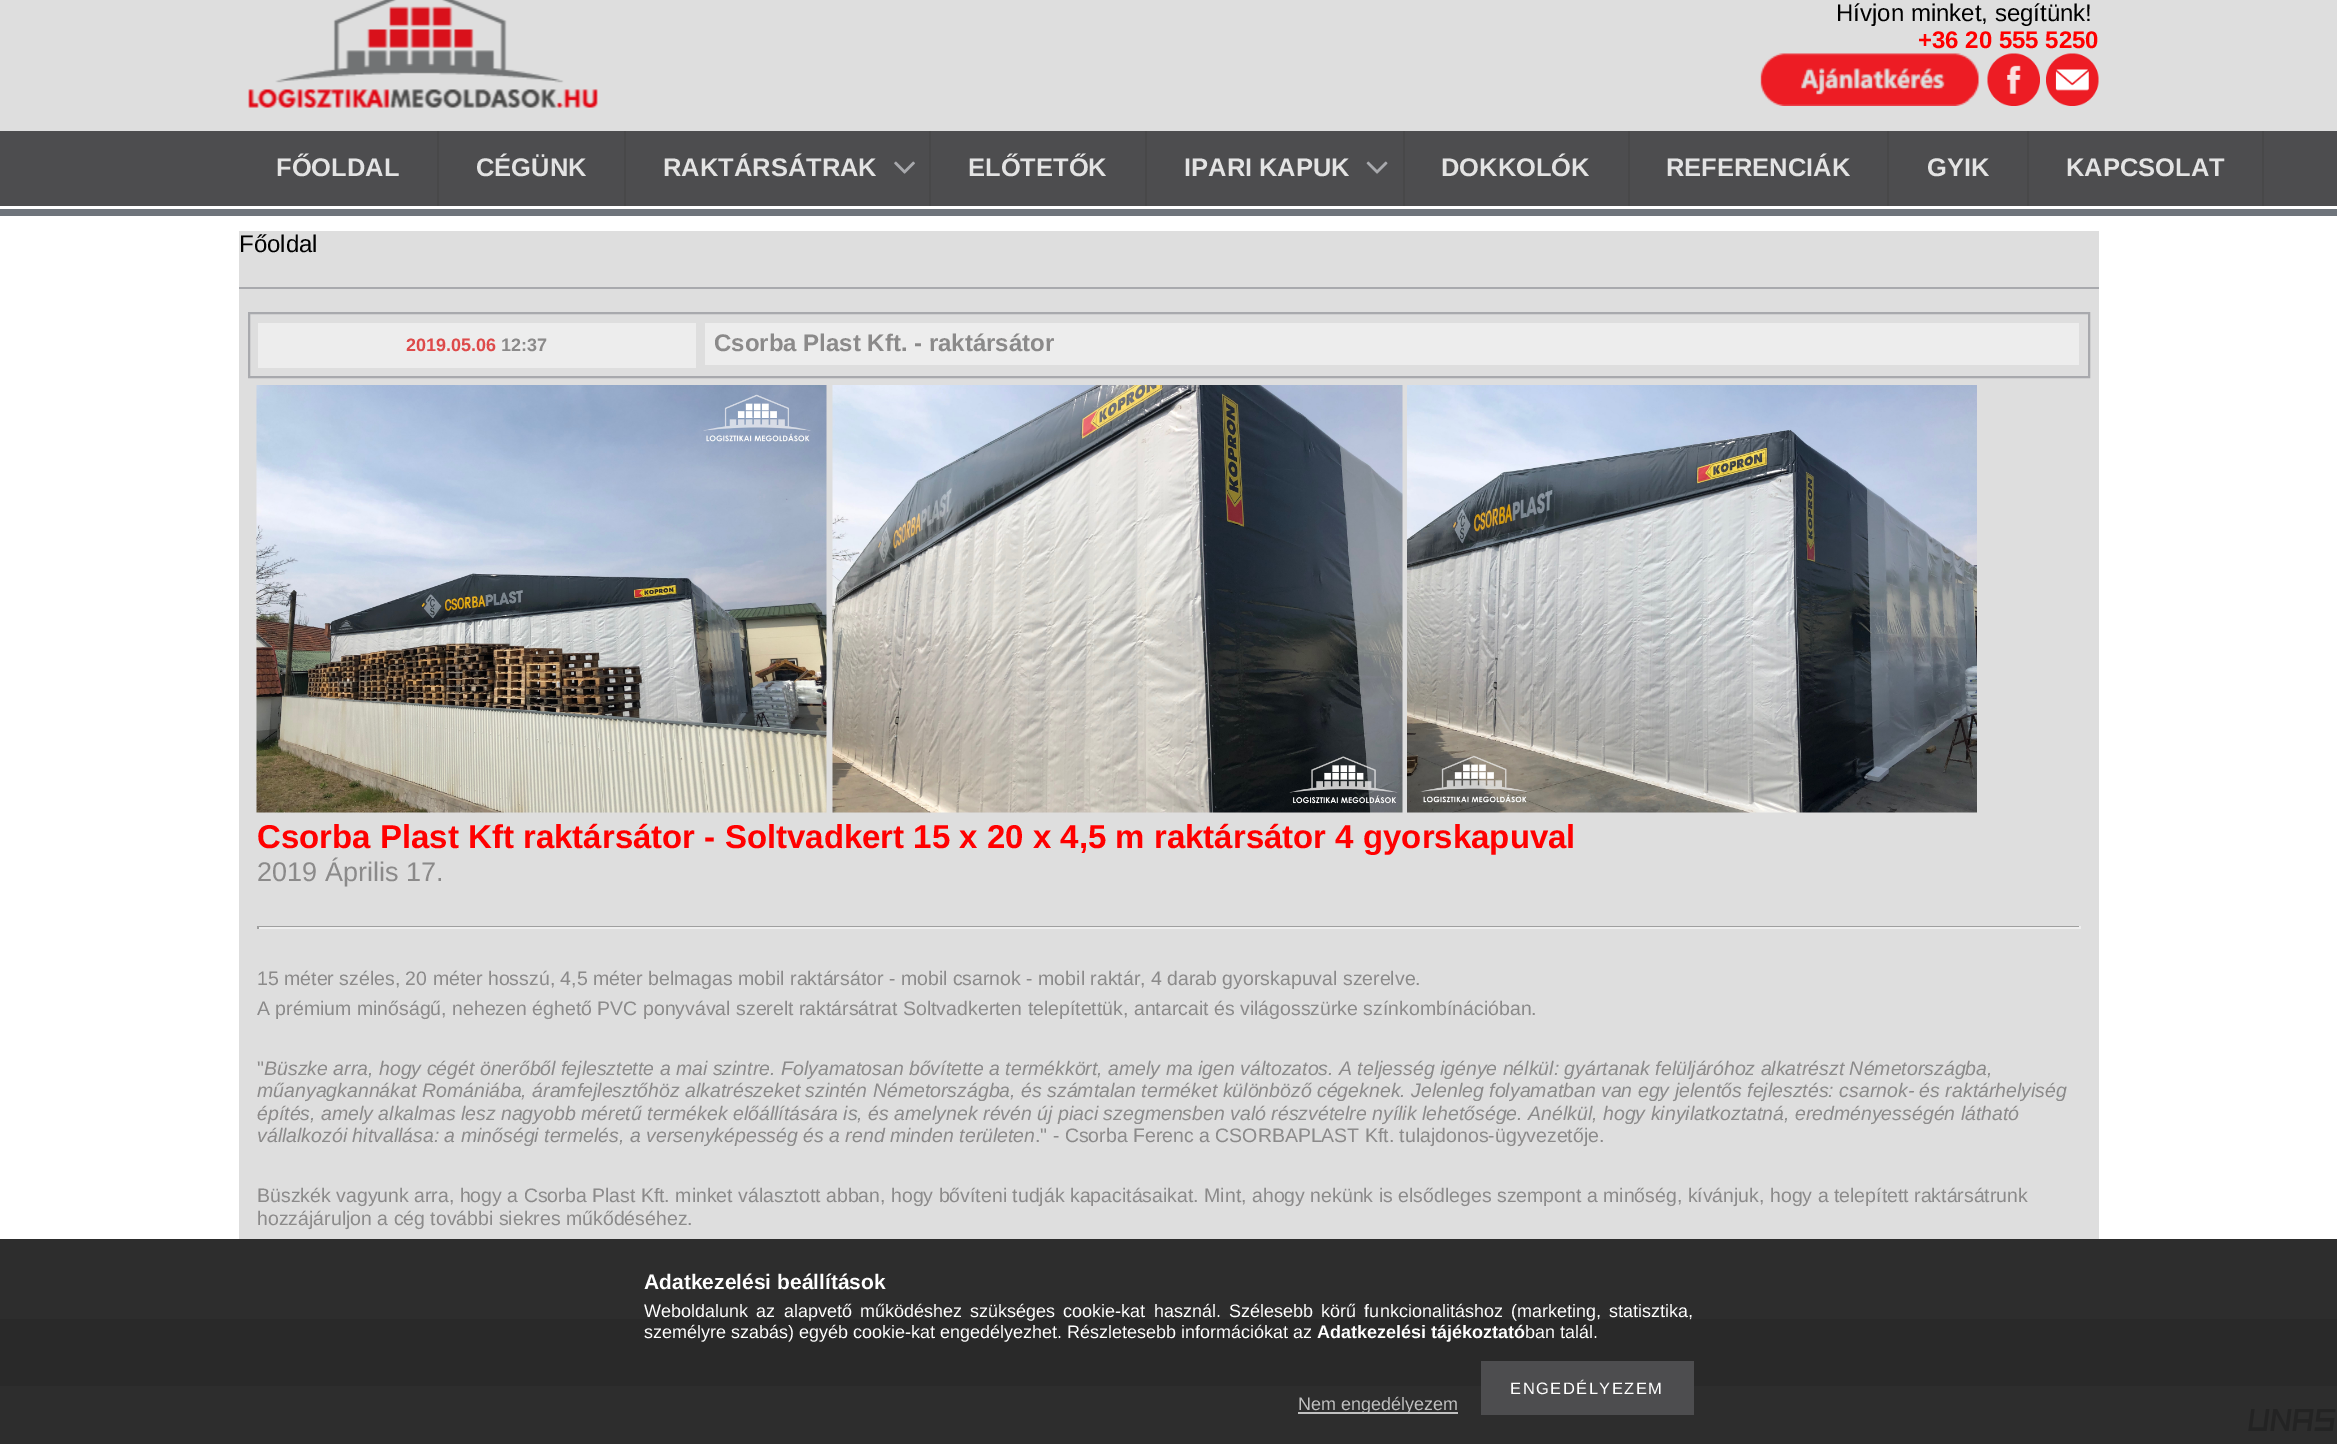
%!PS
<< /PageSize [2337 1444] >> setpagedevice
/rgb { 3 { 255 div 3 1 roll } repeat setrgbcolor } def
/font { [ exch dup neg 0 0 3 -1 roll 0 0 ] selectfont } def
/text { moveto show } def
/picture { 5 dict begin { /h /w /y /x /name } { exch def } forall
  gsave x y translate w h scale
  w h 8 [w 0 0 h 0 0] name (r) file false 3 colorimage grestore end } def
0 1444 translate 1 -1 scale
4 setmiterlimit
255 255 255 rgb
0 0 2337 1444 rectfill
45 45 45 rgb
0 1239 2337 205 rectfill
222 222 222 rgb
0 0 2337 131 rectfill
(img_01.rgb) 248 0 350 108 picture
(img_02.rgb) 1760 53 220 53 picture
(img_03.rgb) 1987 53 53 53 picture
(img_04.rgb) 2046 53 53 53 picture
77 77 79 rgb
0 131 2337 75 rectfill
72 72 73 rgb
437 131 2 75 rectfill
624 131 2 75 rectfill
929 131 2 75 rectfill
(img_05.rgb) 894 161 21 13 picture
1145 131 2 75 rectfill
1403 131 2 75 rectfill
(img_06.rgb) 1366 161 22 13 picture
1628 131 2 75 rectfill
1887 131 2 75 rectfill
2027 131 2 75 rectfill
2262 131 2 75 rectfill
110 116 123 rgb
0 209 2337 7 rectfill
222 222 222 rgb
239 231 1860 1008 rectfill
168 169 173 rgb
239 287 1860 2 rectfill
2 setlinewidth
249 313 1840 64 rectstroke
237 237 237 rgb
258 323 438 45 rectfill
705 323 1374 42 rectfill
(img_07.rgb) 256 385 571 428 picture
(img_08.rgb) 832 385 571 428 picture
(img_09.rgb) 1407 385 570 428 picture
159 159 159 rgb
257 926 1824 1 rectfill
238 238 238 rgb
2079 926 2 3 rectfill
257 927 1824 2 rectfill
159 159 159 rgb
257 926 2 3 rectfill
41 41 41 rgb
0 1319 2337 67 rectfill
(img_10.rgb) 2248 1409 88 22 picture
77 77 79 rgb
1481 1361 213 54 rectfill
192 192 192 rgb
1298 1412 160 2 rectfill
/LiberationSans-Regular 24 font
0 0 0 rgb
(Hívjon minket, segítünk!) 1836 21 text
/LiberationSans-Bold 24 font
255 0 0 rgb
(+36 20 555 5250) 1918 48 text
/LiberationSans-Bold 25.5 font
227 227 227 rgb
(FŐOLDAL) 276 176 text
(CÉGÜNK) 476 176 text
(RAKTÁRSÁTRAK) 663 176 text
(ELŐTETŐK) 968 176 text
(IPARI KAPUK) 1184 176 text
(DOKKOLÓK) 1441 176 text
(REFERENCIÁK) 1666 176 text
(GYIK) 1927 176 text
(KAPCSOLAT) 2066 176 text
/LiberationSans-Regular 24 font
0 0 0 rgb
(Főoldal) 239 252 text
/LiberationSans-Bold 18 font
222 74 74 rgb
(2019.05.06) 406 351 text
139 138 138 rgb
(12:37) 501 351 text
/LiberationSans-Bold 24 font
(Csorba Plast Kft. - raktársátor) 714 351 text
/LiberationSans-Bold 33 font
255 0 0 rgb
(Csorba Plast Kft raktársátor - Soltvadkert 15 x 20 x 4,5 m raktársátor 4 gyorskapuval) 257 848 text
/LiberationSans-Regular 27 font
139 138 138 rgb
(2019 Április 17.) 257 881 text
/LiberationSans-Regular 19.5 font
(15 méter széles, 20 méter hosszú, 4,5 méter belmagas mobil raktársátor - mobil csarnok - mobil raktár, 4 darab gyorskapuval szerelve.) 257 985 text
(A prémium minőságű, nehezen éghető PVC ponyvával szerelt raktársátrat Soltvadkerten telepítettük, antarcait és világosszürke színkombínációban.) 257 1015 text
(") 257 1075 text
/LiberationSans-Italic 19.5 font
(Büszke arra, hogy cégét önerőből fejlesztette a mai szintre. Folyamatosan bővítette a termékkört, amely ma igen változatos. A teljesség igénye nélkül: gyártanak felüljáróhoz alkatrészt Németországba,) 264 1075 text
(műanyagkannákat Romániába, áramfejlesztőhöz alkatrészeket szintén Németországba, és számtalan terméket különböző cégeknek. Jelenleg folyamatban van egy jelentős fejlesztés: csarnok- és raktárhelyiség) 257 1097 text
(építés, amely alkalmas lesz nagyobb méretű termékek előállítására is, és amelynek révén új piaci szegmensben való részvételre nyílik lehetősége. Anélkül, hogy kinyilatkoztatná, eredményességén látható) 257 1120 text
(vállalkozói hitvallása: a minőségi termelés, a versenyképesség és a rend minden területen) 257 1142 text
/LiberationSans-Regular 19.5 font
(." - Csorba Ferenc a CSORBAPLAST Kft. tulajdonos-ügyvezetője.) 1035 1142 text
(Büszkék vagyunk arra, hogy a Csorba Plast Kft. minket választott abban, hogy bővíteni tudják kapacitásaikat. Mint, ahogy nekünk is elsődleges szempont a minőség, kívánjuk, hogy a telepített raktársátrunk) 257 1202 text
(hozzájáruljon a cég további siekres műkődéséhez.) 257 1225 text
/LiberationSans-Bold 21 font
255 255 255 rgb
(Adatkezelési beállítások) 644 1289 text
/LiberationSans-Regular 18 font
644 1317 moveto 3.25 0 32 (Weboldalunk az alapvető működéshez szükséges cookie-kat használ. Szélesebb körű funkcionalitáshoz \(marketing, statisztika,) widthshow
(személyre szabás\) egyéb cookie-kat engedélyezhet. Részletesebb információkat az) 644 1338 text
/LiberationSans-Bold 18 font
(Adatkezelési tájékoztató) 1317 1338 text
/LiberationSans-Regular 18 font
(ban talál.) 1525 1338 text
/LiberationSans-Regular 16.5 font
1510 1394 moveto 1.5 0 (ENGEDÉLYEZEM) ashow
/LiberationSans-Regular 18 font
192 192 192 rgb
(Nem engedélyezem) 1298 1410 text
showpage
